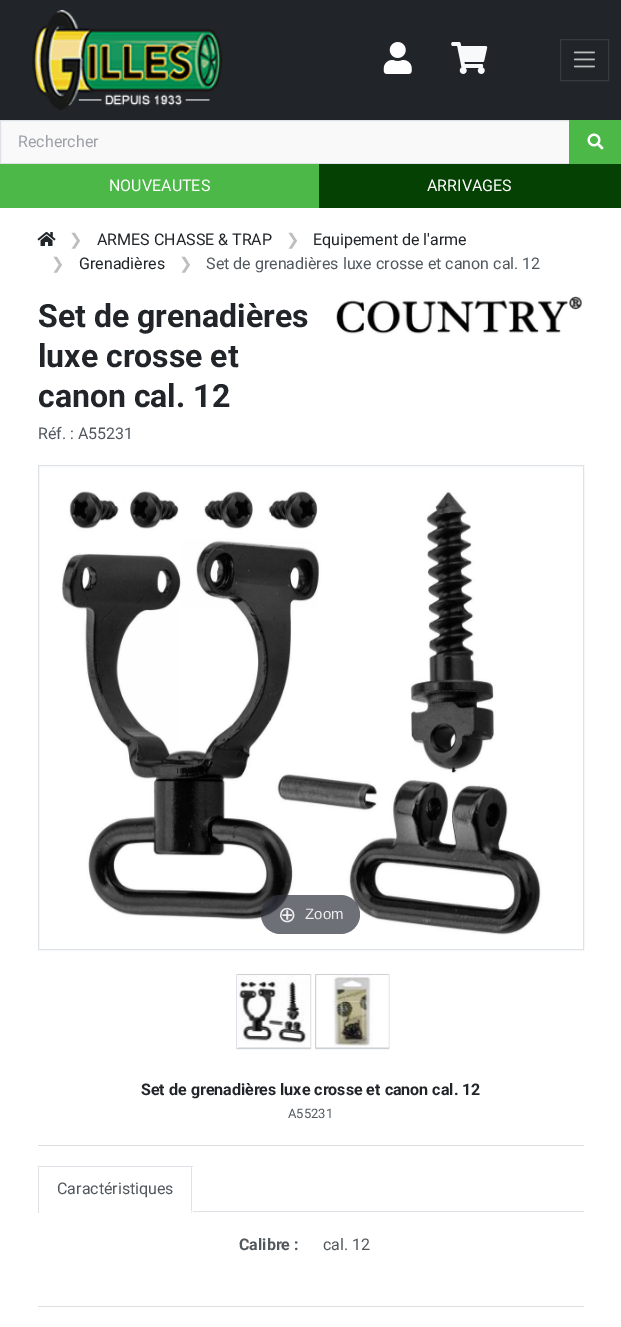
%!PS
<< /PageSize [621 1327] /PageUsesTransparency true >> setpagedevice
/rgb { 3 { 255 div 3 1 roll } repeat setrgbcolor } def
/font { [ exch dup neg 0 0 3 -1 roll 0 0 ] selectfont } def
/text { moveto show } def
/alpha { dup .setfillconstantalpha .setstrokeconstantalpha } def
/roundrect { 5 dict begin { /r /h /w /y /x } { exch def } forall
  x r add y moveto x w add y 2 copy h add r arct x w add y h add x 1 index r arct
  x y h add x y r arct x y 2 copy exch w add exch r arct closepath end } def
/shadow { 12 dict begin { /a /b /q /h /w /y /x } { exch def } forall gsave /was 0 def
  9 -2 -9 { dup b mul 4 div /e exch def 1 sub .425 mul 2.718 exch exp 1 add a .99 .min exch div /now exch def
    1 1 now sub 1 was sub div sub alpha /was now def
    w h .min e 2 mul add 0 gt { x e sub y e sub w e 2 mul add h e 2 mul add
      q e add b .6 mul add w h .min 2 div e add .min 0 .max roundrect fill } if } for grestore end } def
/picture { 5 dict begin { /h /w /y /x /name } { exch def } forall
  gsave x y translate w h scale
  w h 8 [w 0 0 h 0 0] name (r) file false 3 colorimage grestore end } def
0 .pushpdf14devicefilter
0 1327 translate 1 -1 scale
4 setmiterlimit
255 255 255 rgb
0 0 621 1327 rectfill
33 37 41 rgb
0 0 621 120 rectfill
(img_01.rgb) 32 10 191 100 picture
(img_02.rgb) 383 42 29 32 picture
(img_03.rgb) 451 42 37 32 picture
55 59 62 rgb
560.5 39.5 48 41 rectstroke
(img_04.rgb) 573 51 22 17 picture
249 249 249 rgb
0.5 120.5 moveto 569 0 rlineto 0 43 rlineto -569 0 rlineto closepath gsave fill grestore
222 226 230 rgb
stroke
76 184 72 rgb
569 120 52 44 rectfill
(img_05.rgb) 587 133 17 17 picture
0 164 319 44 rectfill
5 65 3 rgb
319 164 302 44 rectfill
(img_06.rgb) 37 232 19 14 picture
(img_07.rgb) 336 296 246 38 picture
222 226 230 rgb
38.5 465.5 545 484 rectstroke
(img_08.rgb) 62 490 480 445 picture
0.7 alpha
49 51 61 rgb
261 895 99 39 19.5 roundrect fill
1 alpha
222 226 230 rgb
236.5 974.5 74 74 rectstroke
0 0 0 rgb
238 975 72 73 0 0.5 0.3 shadow
(img_09.rgb) 237 975 74 73 picture
gsave
311 970 78 90 rectclip
222 226 230 rgb
315.5 974.5 74 74 rectstroke
grestore
316 975 73 73 0 0.5 0.3 shadow
(img_10.rgb) 316 975 73 73 picture
220 222 223 rgb
38 1145 546 1 rectfill
222 226 230 rgb
193 1211 391 1 rectfill
38 1166 155 1 rectfill
191 1166 1 47 rectfill
255 255 255 rgb
191 1211 2 1 rectfill
222 226 230 rgb
38 1166 1 47 rectfill
220 222 223 rgb
38 1306 546 1 rectfill
/Roboto-Regular 16 font
157 161 167 rgb
(Rechercher) 18 147 text
255 255 255 rgb
(NOUVEAUTES) 109 191 text
(ARRIVAGES) 427 191 text
/DejaVuSans-Regular 16 font
188 190 191 rgb
(❯) 69 245 text
/Roboto-Regular 16 font
33 37 41 rgb
(ARMES CHASSE & TRAP) 97 245 text
/DejaVuSans-Regular 16 font
188 190 191 rgb
(❯) 286 245 text
/Roboto-Regular 16 font
33 37 41 rgb
(Equipement de l'arme) 313 245 text
/DejaVuSans-Regular 16 font
188 190 191 rgb
(❯) 51 269 text
/Roboto-Regular 16 font
33 37 41 rgb
(Grenadières) 79 269 text
/DejaVuSans-Regular 16 font
188 190 191 rgb
(❯) 179 269 text
/Roboto-Regular 16 font
81 88 94 rgb
(Set de grenadières luxe crosse et canon cal. 12) 206 269 text
/Roboto-Bold 32 font
33 37 41 rgb
(Set de grenadières) 38 327 text
(luxe crosse et) 38 367 text
(canon cal. 12) 38 407 text
/Roboto-Regular 16 font
81 88 94 rgb
(Réf. : A55231) 38 439 text
/DejaVuSans-Regular 22 font
238 238 238 rgb
(⊕) 278 922 text
/LiberationSans-Regular 15 font
(Zoom) 305 919 text
/Roboto-Bold 16 font
33 37 41 rgb
(Set de grenadières luxe crosse et canon cal. 12) 141 1095 text
/Roboto-Regular 13 font
81 88 94 rgb
(A55231) 288 1118 text
/Roboto-Regular 16 font
(Caractéristiques) 57 1194 text
/Roboto-Bold 16 font
(Calibre :) 239 1250 text
/Roboto-Regular 16 font
(cal. 12) 323 1250 text
.poppdf14devicefilter showpage
